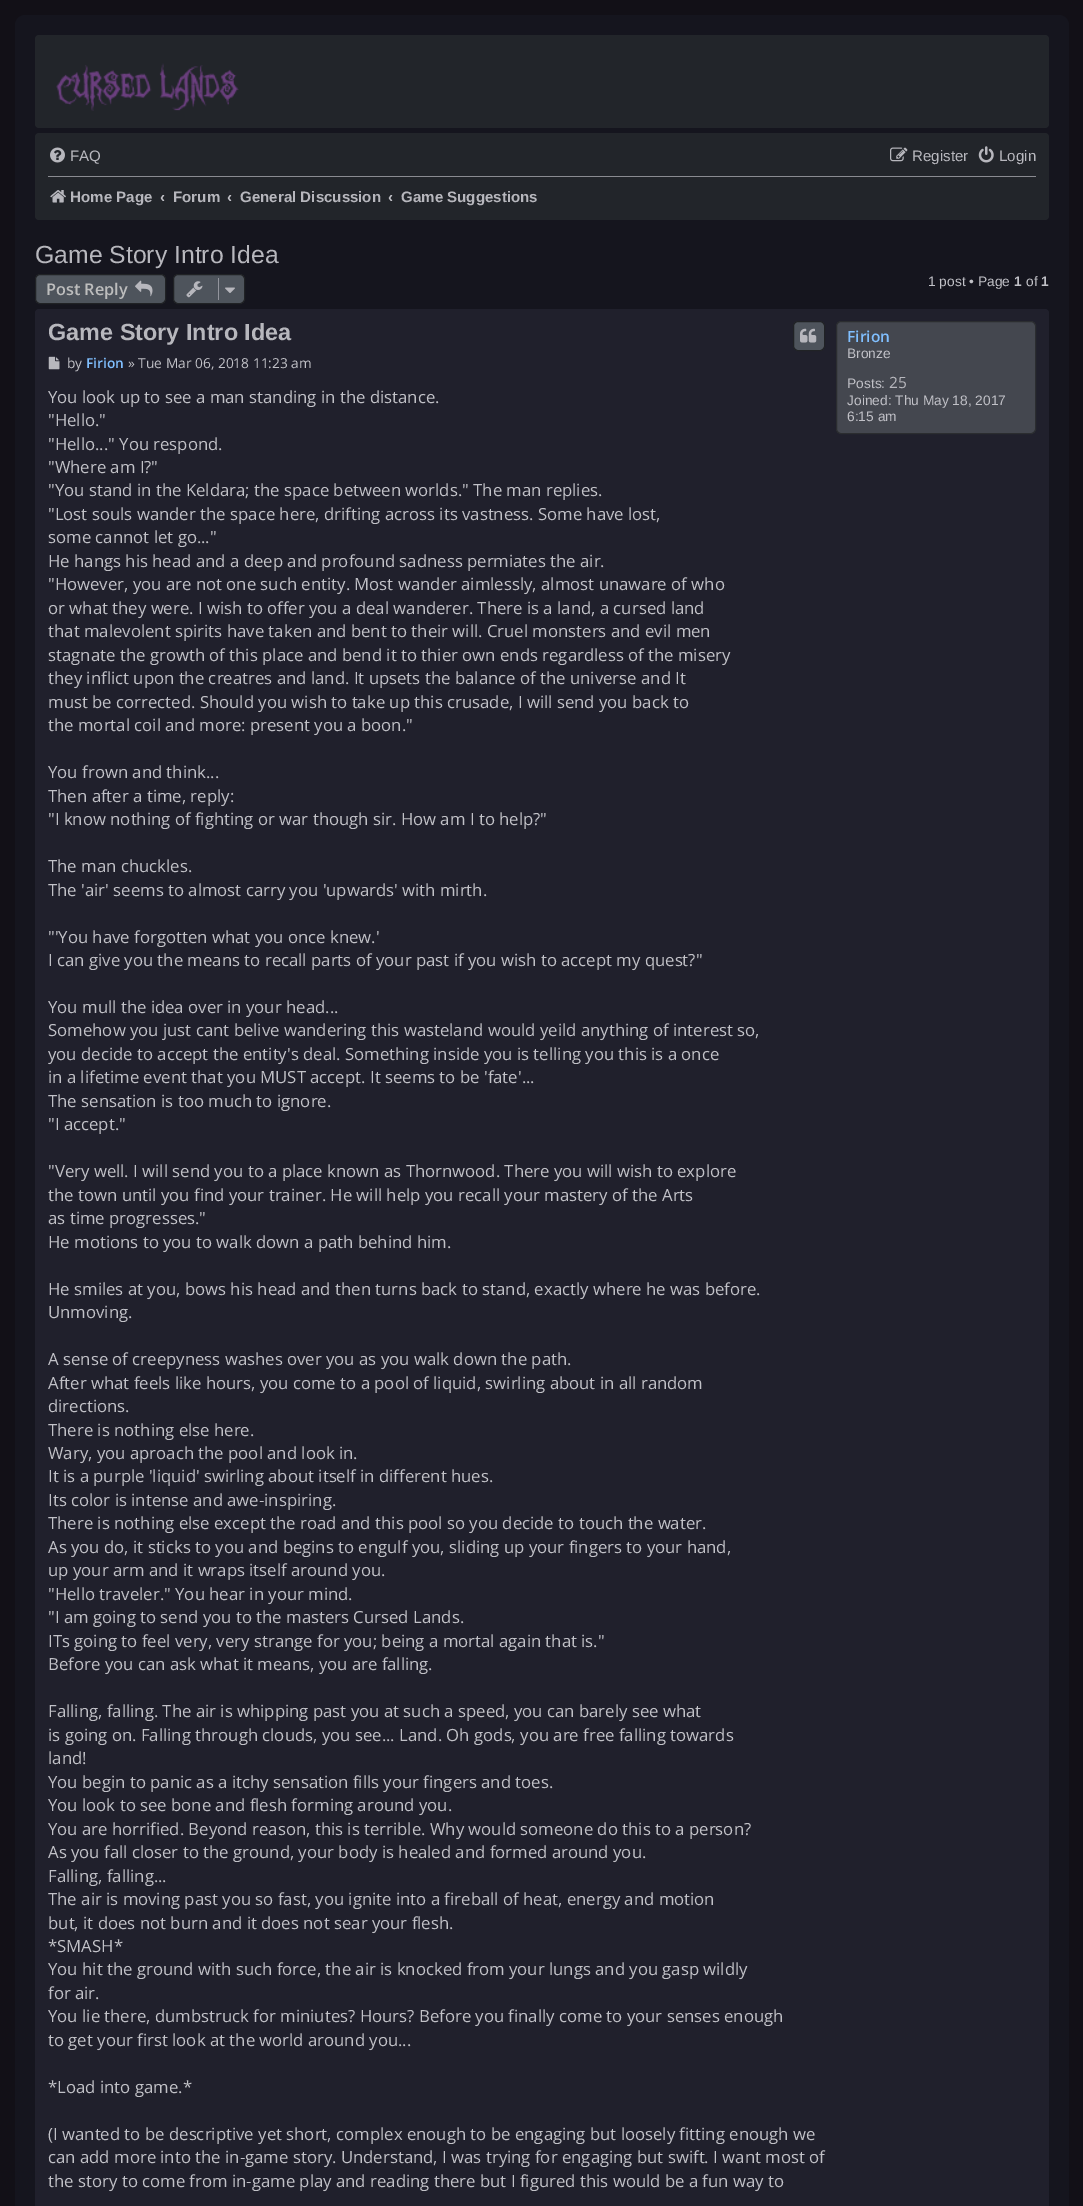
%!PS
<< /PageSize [1083 2206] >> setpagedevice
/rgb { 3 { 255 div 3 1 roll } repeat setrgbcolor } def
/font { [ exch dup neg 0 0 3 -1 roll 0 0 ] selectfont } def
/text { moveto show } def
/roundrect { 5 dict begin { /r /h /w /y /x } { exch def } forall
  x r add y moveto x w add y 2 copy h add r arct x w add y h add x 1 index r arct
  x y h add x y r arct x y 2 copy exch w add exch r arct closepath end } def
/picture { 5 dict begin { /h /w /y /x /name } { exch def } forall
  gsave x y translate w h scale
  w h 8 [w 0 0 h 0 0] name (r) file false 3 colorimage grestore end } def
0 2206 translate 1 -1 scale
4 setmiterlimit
18 16 23 rgb
0 0 1083 2206 rectfill
21 21 30 rgb
15 15 1054 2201 10 roundrect fill
34 37 42 rgb
35 35 1014 93 4 roundrect fill
(img_01.rgb) 56 63 183 48 picture
35 133 1014 87 4 roundrect fill
(img_02.rgb) 50 147 15 16 picture
(img_03.rgb) 890 147 18 15 picture
(img_04.rgb) 978 146 16 17 picture
138 139 145 rgb
48 176 988 1 rectfill
(img_05.rgb) 50 190 16 13 picture
78 84 92 rgb
35.5 274.5 130 29 4.5 roundrect gsave fill grestore
32 34 37 rgb
stroke
(img_06.rgb) 135 280 18 17 picture
78 84 92 rgb
173.5 274.5 71 29 4.5 roundrect gsave fill grestore
32 34 37 rgb
stroke
(img_07.rgb) 186 281 17 17 picture
147 149 157 rgb
218 278 1 22 rectfill
(img_08.rgb) 225 287 10 6 picture
32 32 44 rgb
35 309 1014 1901 4 roundrect fill
78 84 92 rgb
793.5 321.5 31 29 4.5 roundrect gsave fill grestore
32 34 37 rgb
stroke
(img_09.rgb) 800 328 17 15 picture
(img_10.rgb) 48 356 12 14 picture
68 71 79 rgb
836.5 321.5 199 112 4.5 roundrect gsave fill grestore
43 45 48 rgb
stroke
/LiberationSans-Regular 15.1 font
183 183 189 rgb
(FAQ) 70 161 text
(Register) 912 161 text
(Login) 999 161 text
/LiberationSans-Bold 15.1 font
(Home Page) 70 202 text
193 193 199 rgb
(‹) 160 202 text
183 183 189 rgb
(Forum) 173 202 text
193 193 199 rgb
(‹) 227 202 text
183 183 189 rgb
(General Discussion) 240 202 text
193 193 199 rgb
(‹) 388 202 text
183 183 189 rgb
(Game Suggestions) 401 202 text
/LiberationSans-Regular 24.75 font
(Game Story Intro Idea) 35 263 text
/OpenSans-SemiBold 16.25 font
189 189 189 rgb
(Post Reply) 46 295 text
/LiberationSans-Regular 13.75 font
193 193 199 rgb
(1 post • Page) 928 286 text
/LiberationSans-Bold 13.75 font
(1) 1014 286 text
/LiberationSans-Regular 13.75 font
(of) 1026 286 text
/LiberationSans-Bold 13.75 font
(1) 1041 286 text
/LiberationSans-Bold 23.4 font
183 183 189 rgb
(Game Story Intro Idea) 48 340 text
/OpenSans-Regular 13.75 font
193 193 199 rgb
(by) 67 368 text
/OpenSans-SemiBold 13.75 font
128 191 255 rgb
(Firion) 86 368 text
/OpenSans-Regular 13.75 font
193 193 199 rgb
(» Tue Mar 06, 2018 11:23 am) 128 368 text
/OpenSans-Regular 16.75 font
(You look up to see a man standing in the distance.) 48 403 text
("Hello.") 48 426 text
("Hello..." You respond.) 48 450 text
("Where am I?") 48 473 text
("You stand in the Keldara; the space between worlds." The man replies.) 48 496 text
("Lost souls wander the space here, drifting across its vastness. Some have lost,) 48 520 text
(some cannot let go...") 48 543 text
(He hangs his head and a deep and profound sadness permiates the air.) 48 567 text
("However, you are not one such entity. Most wander aimlessly, almost unaware of who) 48 590 text
(or what they were. I wish to offer you a deal wanderer. There is a land, a cursed land) 48 614 text
(that malevolent spirits have taken and bent to their will. Cruel monsters and evil men) 48 637 text
(stagnate the growth of this place and bend it to thier own ends regardless of the misery) 48 661 text
(they inflict upon the creatres and land. It upsets the balance of the universe and It) 48 684 text
(must be corrected. Should you wish to take up this crusade, I will send you back to) 48 708 text
(the mortal coil and more: present you a boon.") 48 731 text
(You frown and think...) 48 778 text
(Then after a time, reply:) 48 802 text
("I know nothing of fighting or war though sir. How am I to help?") 48 825 text
(The man chuckles.) 48 872 text
(The 'air' seems to almost carry you 'upwards' with mirth.) 48 896 text
("'You have forgotten what you once knew.') 48 943 text
(I can give you the means to recall parts of your past if you wish to accept my quest?") 48 966 text
(You mull the idea over in your head...) 48 1013 text
(Somehow you just cant belive wandering this wasteland would yeild anything of interest so,) 48 1036 text
(you decide to accept the entity's deal. Something inside you is telling you this is a once) 48 1060 text
(in a lifetime event that you MUST accept. It seems to be 'fate'...) 48 1083 text
(The sensation is too much to ignore.) 48 1107 text
("I accept.") 48 1130 text
("Very well. I will send you to a place known as Thornwood. There you will wish to explore) 48 1177 text
(the town until you find your trainer. He will help you recall your mastery of the Arts) 48 1201 text
(as time progresses.") 48 1224 text
(He motions to you to walk down a path behind him.) 48 1248 text
(He smiles at you, bows his head and then turns back to stand, exactly where he was before.) 48 1295 text
(Unmoving.) 48 1318 text
(A sense of creepyness washes over you as you walk down the path.) 48 1365 text
(After what feels like hours, you come to a pool of liquid, swirling about in all random) 48 1389 text
(directions.) 48 1412 text
(There is nothing else here.) 48 1436 text
(Wary, you aproach the pool and look in.) 48 1459 text
(It is a purple 'liquid' swirling about itself in different hues.) 48 1482 text
(Its color is intense and awe-inspiring.) 48 1506 text
(There is nothing else except the road and this pool so you decide to touch the water.) 48 1529 text
(As you do, it sticks to you and begins to engulf you, sliding up your fingers to your hand,) 48 1553 text
(up your arm and it wraps itself around you.) 48 1576 text
("Hello traveler." You hear in your mind.) 48 1600 text
("I am going to send you to the masters Cursed Lands.) 48 1623 text
(ITs going to feel very, very strange for you; being a mortal again that is.") 48 1647 text
(Before you can ask what it means, you are falling.) 48 1670 text
(Falling, falling. The air is whipping past you at such a speed, you can barely see what) 48 1717 text
(is going on. Falling through clouds, you see... Land. Oh gods, you are free falling towards) 48 1741 text
(land!) 48 1764 text
(You begin to panic as a itchy sensation fills your fingers and toes.) 48 1788 text
(You look to see bone and flesh forming around you.) 48 1811 text
(You are horrified. Beyond reason, this is terrible. Why would someone do this to a person?) 48 1835 text
(As you fall closer to the ground, your body is healed and formed around you.) 48 1858 text
(Falling, falling...) 48 1882 text
(The air is moving past you so fast, you ignite into a fireball of heat, energy and motion) 48 1905 text
(but, it does not burn and it does not sear your flesh.) 48 1929 text
(*SMASH*) 48 1952 text
(You hit the ground with such force, the air is knocked from your lungs and you gasp wildly) 48 1975 text
(for air.) 48 1999 text
(You lie there, dumbstruck for miniutes? Hours? Before you finally come to your senses enough) 48 2022 text
(to get your first look at the world around you...) 48 2046 text
(*Load into game.*) 48 2093 text
(\(I wanted to be descriptive yet short, complex enough to be engaging but loosely fitting enough we) 48 2140 text
(can add more into the in-game story. Understand, I was trying for engaging but swift. I want most of) 48 2163 text
(the story to come from in-game play and reading there but I figured this would be a fun way to) 48 2187 text
/OpenSans-SemiBold 15.5 font
128 191 255 rgb
(Firion) 847 342 text
/LiberationSans-Regular 13.75 font
193 193 199 rgb
(Bronze) 847 358 text
(Posts:) 847 388 text
/OpenSans-Regular 15.5 font
183 183 189 rgb
(25) 889 388 text
/LiberationSans-Regular 13.75 font
193 193 199 rgb
(Joined: Thu May 18, 2017) 847 405 text
(6:15 am) 847 421 text
showpage
